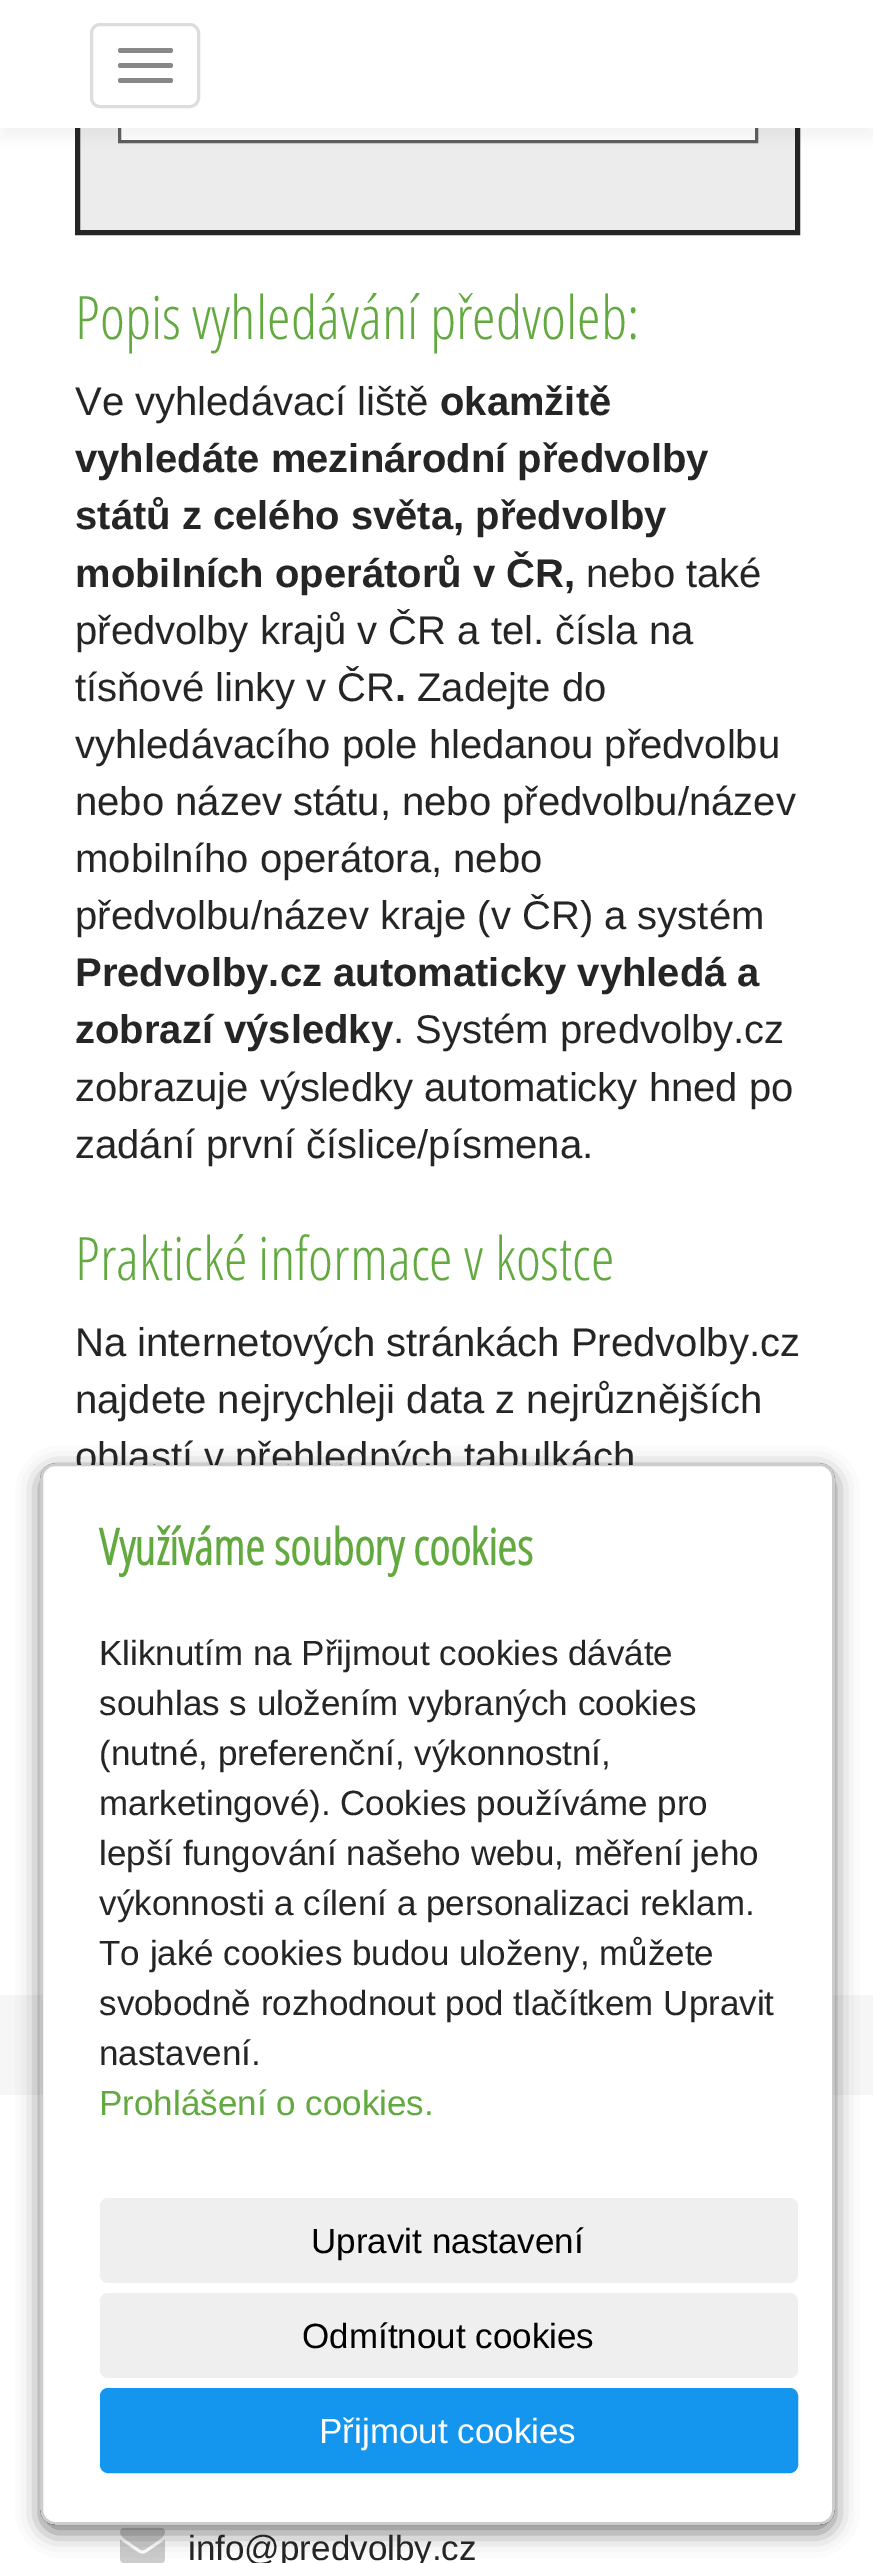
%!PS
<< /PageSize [873 2563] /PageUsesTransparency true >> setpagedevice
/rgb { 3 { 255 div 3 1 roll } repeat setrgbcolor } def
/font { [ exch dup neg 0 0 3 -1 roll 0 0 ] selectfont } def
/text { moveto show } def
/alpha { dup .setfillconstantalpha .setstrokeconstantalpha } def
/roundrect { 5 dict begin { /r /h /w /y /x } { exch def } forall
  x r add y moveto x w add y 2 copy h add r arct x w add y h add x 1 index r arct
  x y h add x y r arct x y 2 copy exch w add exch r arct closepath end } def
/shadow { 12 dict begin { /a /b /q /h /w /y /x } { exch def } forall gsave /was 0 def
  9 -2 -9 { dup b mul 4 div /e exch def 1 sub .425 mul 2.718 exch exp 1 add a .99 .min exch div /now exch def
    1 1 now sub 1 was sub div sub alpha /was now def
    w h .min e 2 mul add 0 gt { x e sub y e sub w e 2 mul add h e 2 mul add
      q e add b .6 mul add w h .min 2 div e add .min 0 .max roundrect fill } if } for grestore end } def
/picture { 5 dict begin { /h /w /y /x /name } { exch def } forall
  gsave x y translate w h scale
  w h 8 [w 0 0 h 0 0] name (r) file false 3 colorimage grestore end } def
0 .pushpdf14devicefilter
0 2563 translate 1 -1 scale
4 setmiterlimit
255 255 255 rgb
0 0 873 2563 rectfill
236 236 236 rgb
80 128 715 102 rectfill
37 37 37 rgb
5 setlinewidth
77.5 -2.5 720 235 rectstroke
255 255 255 rgb
121 128 634 12 rectfill
93 93 93 rgb
3 setlinewidth
119.5 6.5 637 135 rectstroke
50 50 50 rgb
0 10 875 128 0 6 0.05 shadow
255 255 255 rgb
0 0 873 128 rectfill
221 221 221 rgb
91.5 24.5 107 82 8.5 roundrect stroke
136 136 136 rgb
118 48 55 5 2.5 roundrect fill
118 63 55 5 2.5 roundrect fill
118 78 55 5 2.5 roundrect fill
246 246 246 rgb
0 1995 873 100 rectfill
(img_01.rgb) 120 2527 45 36 picture
gsave
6 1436 moveto 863 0 rlineto 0 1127 rlineto -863 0 rlineto closepath 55 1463 moveto 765 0 rlineto 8.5 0 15 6.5 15 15 rcurveto 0 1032 rlineto 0 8.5 -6.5 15 -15 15 rcurveto -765 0 rlineto -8.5 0 -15 -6.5 -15 -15 rcurveto 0 -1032 rlineto 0 -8.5 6.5 -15 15 -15 rcurveto closepath eoclip newpath
0 0 0 rgb
40 1470 795 1063 15 11 0.5 shadow
grestore
/OpenSans-Light 60 font
98 169 63 rgb
(Popis vyhledávání předvoleb:) 75 339 text
/LiberationSans-Regular 40 font
37 37 37 rgb
(Ve vyhledávací liště) 75 415 text
/LiberationSans-Bold 40 font
(okamžitě) 440 415 text
(vyhledáte mezinárodní předvolby) 75 472 text
(států z celého světa, předvolby) 75 529 text
(mobilních operátorů v ČR,) 75 587 text
/LiberationSans-Regular 40 font
(nebo také) 586 587 text
(předvolby krajů v ČR a tel. čísla na) 75 644 text
(tísňové linky v ČR) 75 701 text
/LiberationSans-Bold 40 font
(.) 395 701 text
/LiberationSans-Regular 40 font
(Zadejte do) 417 701 text
(vyhledávacího pole hledanou předvolbu) 75 758 text
(nebo název státu, nebo předvolbu/název) 75 815 text
(mobilního operátora, nebo) 75 872 text
(předvolbu/název kraje \(v ČR\) a systém) 75 929 text
/LiberationSans-Bold 40 font
(Predvolby.cz automaticky vyhledá a) 75 986 text
(zobrazí výsledky) 75 1043 text
/LiberationSans-Regular 40 font
(. Systém predvolby.cz) 393 1043 text
(zobrazuje výsledky automaticky hned po) 75 1101 text
(zadání první číslice/písmena.) 75 1158 text
/OpenSans-Light 60 font
98 169 63 rgb
(Praktické informace v kostce) 75 1280 text
/LiberationSans-Regular 40 font
37 37 37 rgb
(Na internetových stránkách Predvolby.cz) 75 1356 text
(najdete nejrychleji data z nejrůznějších) 75 1413 text
(oblastí v přehledných tabulkách) 75 1470 text
255 255 255 rgb
43 1465 790 1058 13 roundrect fill
0.2 alpha
0 0 0 rgb
41.5 1464.5 792 1059 13.5 roundrect stroke
/OpenSans-Bold 50 font
1 alpha
98 169 63 rgb
(Využíváme soubory cookies) 99 1565 text
/LiberationSans-Regular 35 font
37 37 37 rgb
(Kliknutím na Přijmout cookies dáváte) 99 1665 text
(souhlas s uložením vybraných cookies) 99 1715 text
(\(nutné, preferenční, výkonnostní,) 99 1765 text
(marketingové\). Cookies používáme pro) 99 1815 text
(lepší fungování našeho webu, měření jeho) 99 1865 text
(výkonnosti a cílení a personalizaci reklam.) 99 1915 text
(To jaké cookies budou uloženy, můžete) 99 1965 text
(svobodně rozhodnout pod tlačítkem Upravit) 99 2015 text
(nastavení.) 99 2065 text
98 169 63 rgb
(Prohlášení o cookies.) 99 2115 text
239 239 239 rgb
100 2198 698 85 8 roundrect fill
0 0 0 rgb
(Upravit nastavení) 311 2253 text
239 239 239 rgb
100 2293 698 85 8 roundrect fill
0 0 0 rgb
(Odmítnout cookies) 302 2348 text
20 150 238 rgb
101.5 2389.5 695 82 6.5 roundrect gsave fill grestore
stroke
255 255 255 rgb
(Přijmout cookies) 319 2443 text
37 37 37 rgb
(info@predvolby.cz) 188 2560 text
.poppdf14devicefilter showpage
